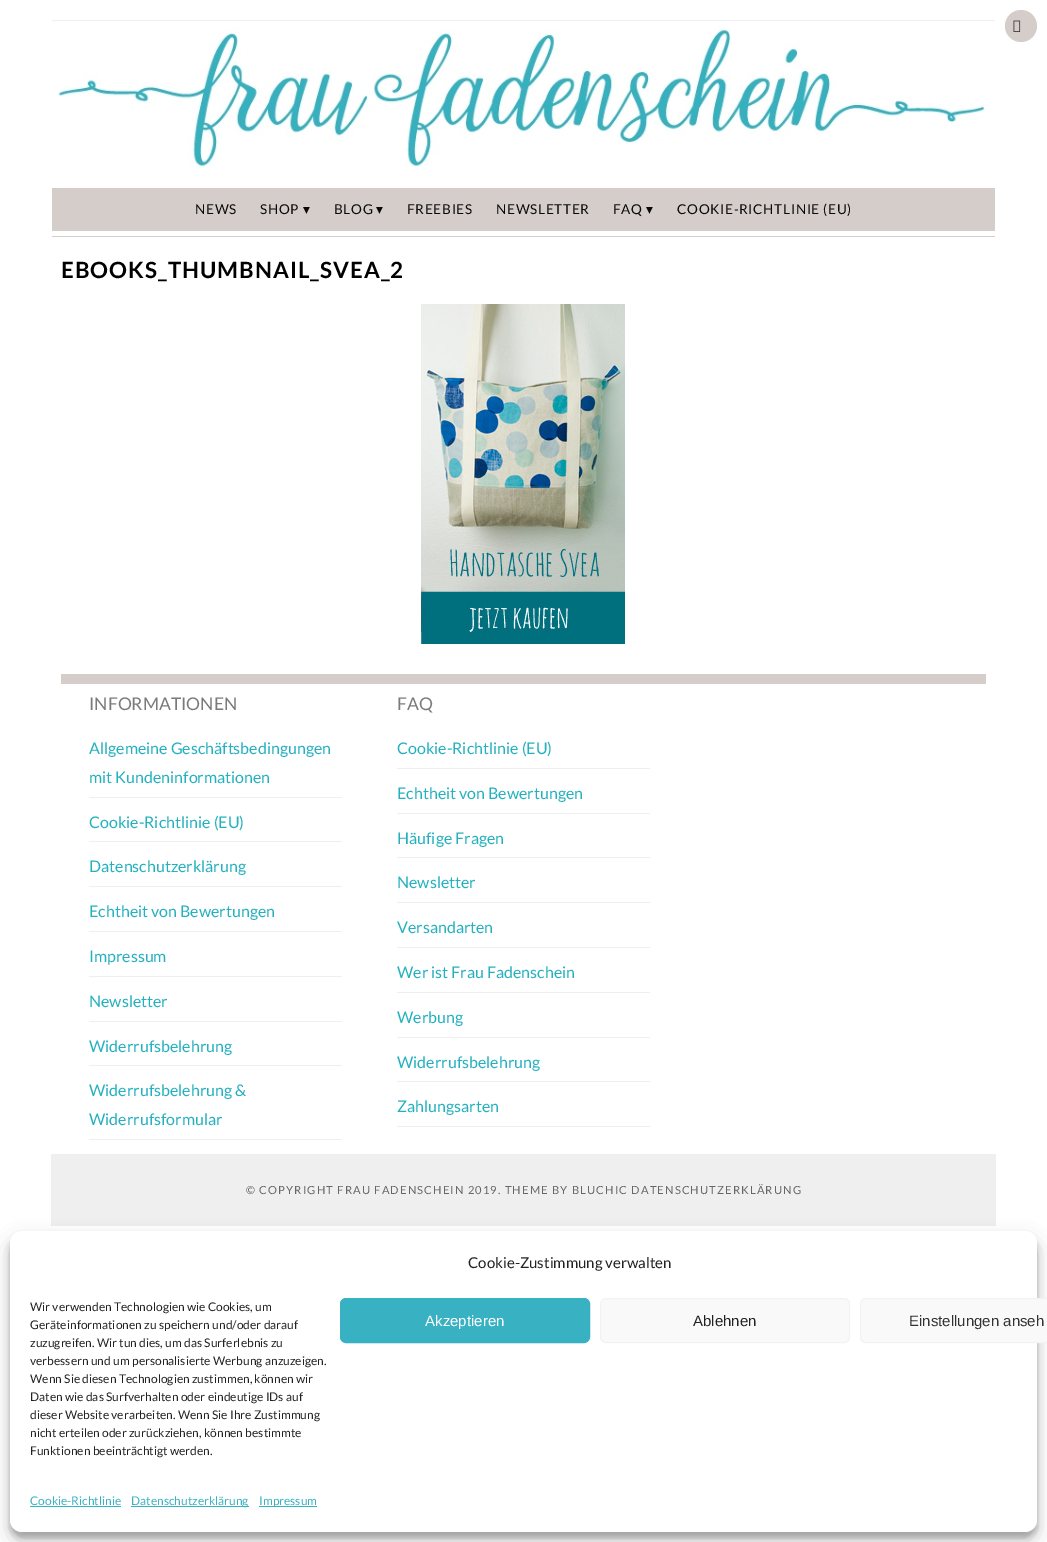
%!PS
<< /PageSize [1047 1542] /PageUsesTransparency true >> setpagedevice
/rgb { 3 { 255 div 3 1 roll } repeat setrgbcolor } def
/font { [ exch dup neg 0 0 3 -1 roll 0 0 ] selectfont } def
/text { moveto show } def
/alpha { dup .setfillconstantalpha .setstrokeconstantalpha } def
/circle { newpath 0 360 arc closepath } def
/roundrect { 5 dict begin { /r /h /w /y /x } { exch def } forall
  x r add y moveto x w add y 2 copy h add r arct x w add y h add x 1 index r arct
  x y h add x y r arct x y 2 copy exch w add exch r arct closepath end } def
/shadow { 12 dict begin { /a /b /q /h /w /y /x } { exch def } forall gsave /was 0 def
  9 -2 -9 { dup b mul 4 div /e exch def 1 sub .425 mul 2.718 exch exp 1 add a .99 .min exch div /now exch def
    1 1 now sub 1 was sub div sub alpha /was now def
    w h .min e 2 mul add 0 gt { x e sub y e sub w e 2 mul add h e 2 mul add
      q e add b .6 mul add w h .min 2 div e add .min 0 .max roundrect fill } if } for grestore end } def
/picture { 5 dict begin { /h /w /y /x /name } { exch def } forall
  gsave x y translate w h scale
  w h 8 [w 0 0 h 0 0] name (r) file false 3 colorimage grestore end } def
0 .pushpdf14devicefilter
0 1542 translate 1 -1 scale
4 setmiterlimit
255 255 255 rgb
0 0 1047 1542 rectfill
213 205 202 rgb
1021 26 16 circle fill
(img_01.rgb) 1013 20 8 12 picture
52 236 943 1 rectfill
239 239 239 rgb
52 20 943 1 rectfill
(img_02.rgb) 58 29 927 139 picture
213 205 202 rgb
52 188 943 43 rectfill
(img_03.rgb) 421 304 204 340 picture
61 674 925 10 rectfill
239 239 239 rgb
89 797 253 1 rectfill
89 841 253 1 rectfill
89 886 253 1 rectfill
89 931 253 1 rectfill
89 976 253 1 rectfill
89 1021 253 1 rectfill
89 1065 253 1 rectfill
89 1139 253 1 rectfill
397 768 253 1 rectfill
397 813 253 1 rectfill
397 857 253 1 rectfill
397 902 253 1 rectfill
397 947 253 1 rectfill
397 992 253 1 rectfill
397 1037 253 1 rectfill
397 1081 253 1 rectfill
397 1126 253 1 rectfill
51 1154 945 72 rectfill
0 0 0 rgb
10 1237 1027 301 12 3 0.23 shadow
10 1241 1027 301 12 10 0.19 shadow
255 255 255 rgb
10 1231 1027 301 12 roundrect fill
56 178 195 rgb
340.5 1298.5 249 44 5.5 roundrect gsave fill grestore
stroke
249 249 249 rgb
600.5 1298.5 249 44 5.5 roundrect gsave fill grestore
242 242 242 rgb
stroke
249 249 249 rgb
860.5 1298.5 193 44 5.5 roundrect gsave fill grestore
242 242 242 rgb
stroke
56 178 195 rgb
30 1506 91 1 rectfill
131 1506 118 1 rectfill
259 1506 58 1 rectfill
/Lato-Regular 13.6 font
10 10 10 rgb
195 214 moveto 0.7 0 (NEWS) ashow
260 214 moveto 0.7 0 (SHOP) ashow
/DejaVuSans-Regular 13.6 font
303 214 moveto 0.7 0 (▾) ashow
/Lato-Regular 13.6 font
334 214 moveto 0.7 0 (BLOG) ashow
/DejaVuSans-Regular 13.6 font
376 214 moveto 0.7 0 (▾) ashow
/Lato-Regular 13.6 font
407 214 moveto 0.7 0 (FREEBIES) ashow
496 214 moveto 0.7 0 (NEWSLETTER) ashow
613 214 moveto 0.7 0 (FAQ) ashow
/DejaVuSans-Regular 13.6 font
646 214 moveto 0.7 0 (▾) ashow
/Lato-Regular 13.6 font
677 214 moveto 0.7 0 (COOKIE-RICHTLINIE \(EU\)) ashow
/Lato-Bold 22.4 font
0 0 0 rgb
61 278 moveto 1 0 (EBOOKS_THUMBNAIL_SVEA_2) ashow
/Lato-Regular 17.5 font
122 122 122 rgb
(INFORMATIONEN) 89 710 text
/Lato-Regular 16 font
35 176 191 rgb
(Allgemeine Geschäftsbedingungen) 89 754 text
(mit Kundeninformationen) 89 783 text
(Cookie-Richtlinie \(EU\)) 89 828 text
(Datenschutzerklärung) 89 872 text
(Echtheit von Bewertungen) 89 917 text
(Impressum) 89 962 text
(Newsletter) 89 1007 text
(Widerrufsbelehrung) 89 1052 text
(Widerrufsbelehrung &) 89 1096 text
(Widerrufsformular) 89 1125 text
/Lato-Regular 17.5 font
122 122 122 rgb
(FAQ) 397 710 text
/Lato-Regular 16 font
35 176 191 rgb
(Cookie-Richtlinie \(EU\)) 397 754 text
(Echtheit von Bewertungen) 397 799 text
(Häufige Fragen) 397 844 text
(Newsletter) 397 888 text
(Versandarten) 397 933 text
(Wer ist Frau Fadenschein) 397 978 text
(Werbung) 397 1023 text
(Widerrufsbelehrung) 397 1068 text
(Zahlungsarten) 397 1112 text
/Lato-Regular 11.2 font
102 102 102 rgb
246 1194 moveto 1.12 0 (© COPYRIGHT FRAU FADENSCHEIN 2019. THEME BY BLUCHIC DATENSCHUTZERKLÄRUNG) ashow
/Lato-Regular 15 font
34 34 34 rgb
(Cookie-Zustimmung verwalten) 468 1268 text
/Lato-Regular 12 font
(Wir verwenden Technologien wie Cookies, um) 30 1311 text
(Geräteinformationen zu speichern und/oder darauf) 30 1329 text
(zuzugreifen. Wir tun dies, um das Surferlebnis zu) 30 1347 text
(verbessern und um personalisierte Werbung anzuzeigen.) 30 1365 text
(Wenn Sie diesen Technologien zustimmen, können wir) 30 1383 text
(Daten wie das Surfverhalten oder eindeutige IDs auf) 30 1401 text
(dieser Website verarbeiten. Wenn Sie Ihre Zustimmung) 30 1419 text
(nicht erteilen oder zurückziehen, können bestimmte) 30 1437 text
(Funktionen beeinträchtigt werden.) 30 1455 text
/LiberationSans-Regular 15 font
255 255 255 rgb
(Akzeptieren) 425 1326 text
34 34 34 rgb
(Ablehnen) 693 1326 text
51 51 51 rgb
(Einstellungen anseh) 909 1326 text
/Lato-Regular 12 font
56 178 195 rgb
(Cookie-Richtlinie) 30 1505 text
(Datenschutzerklärung) 131 1505 text
(Impressum) 259 1505 text
.poppdf14devicefilter showpage
